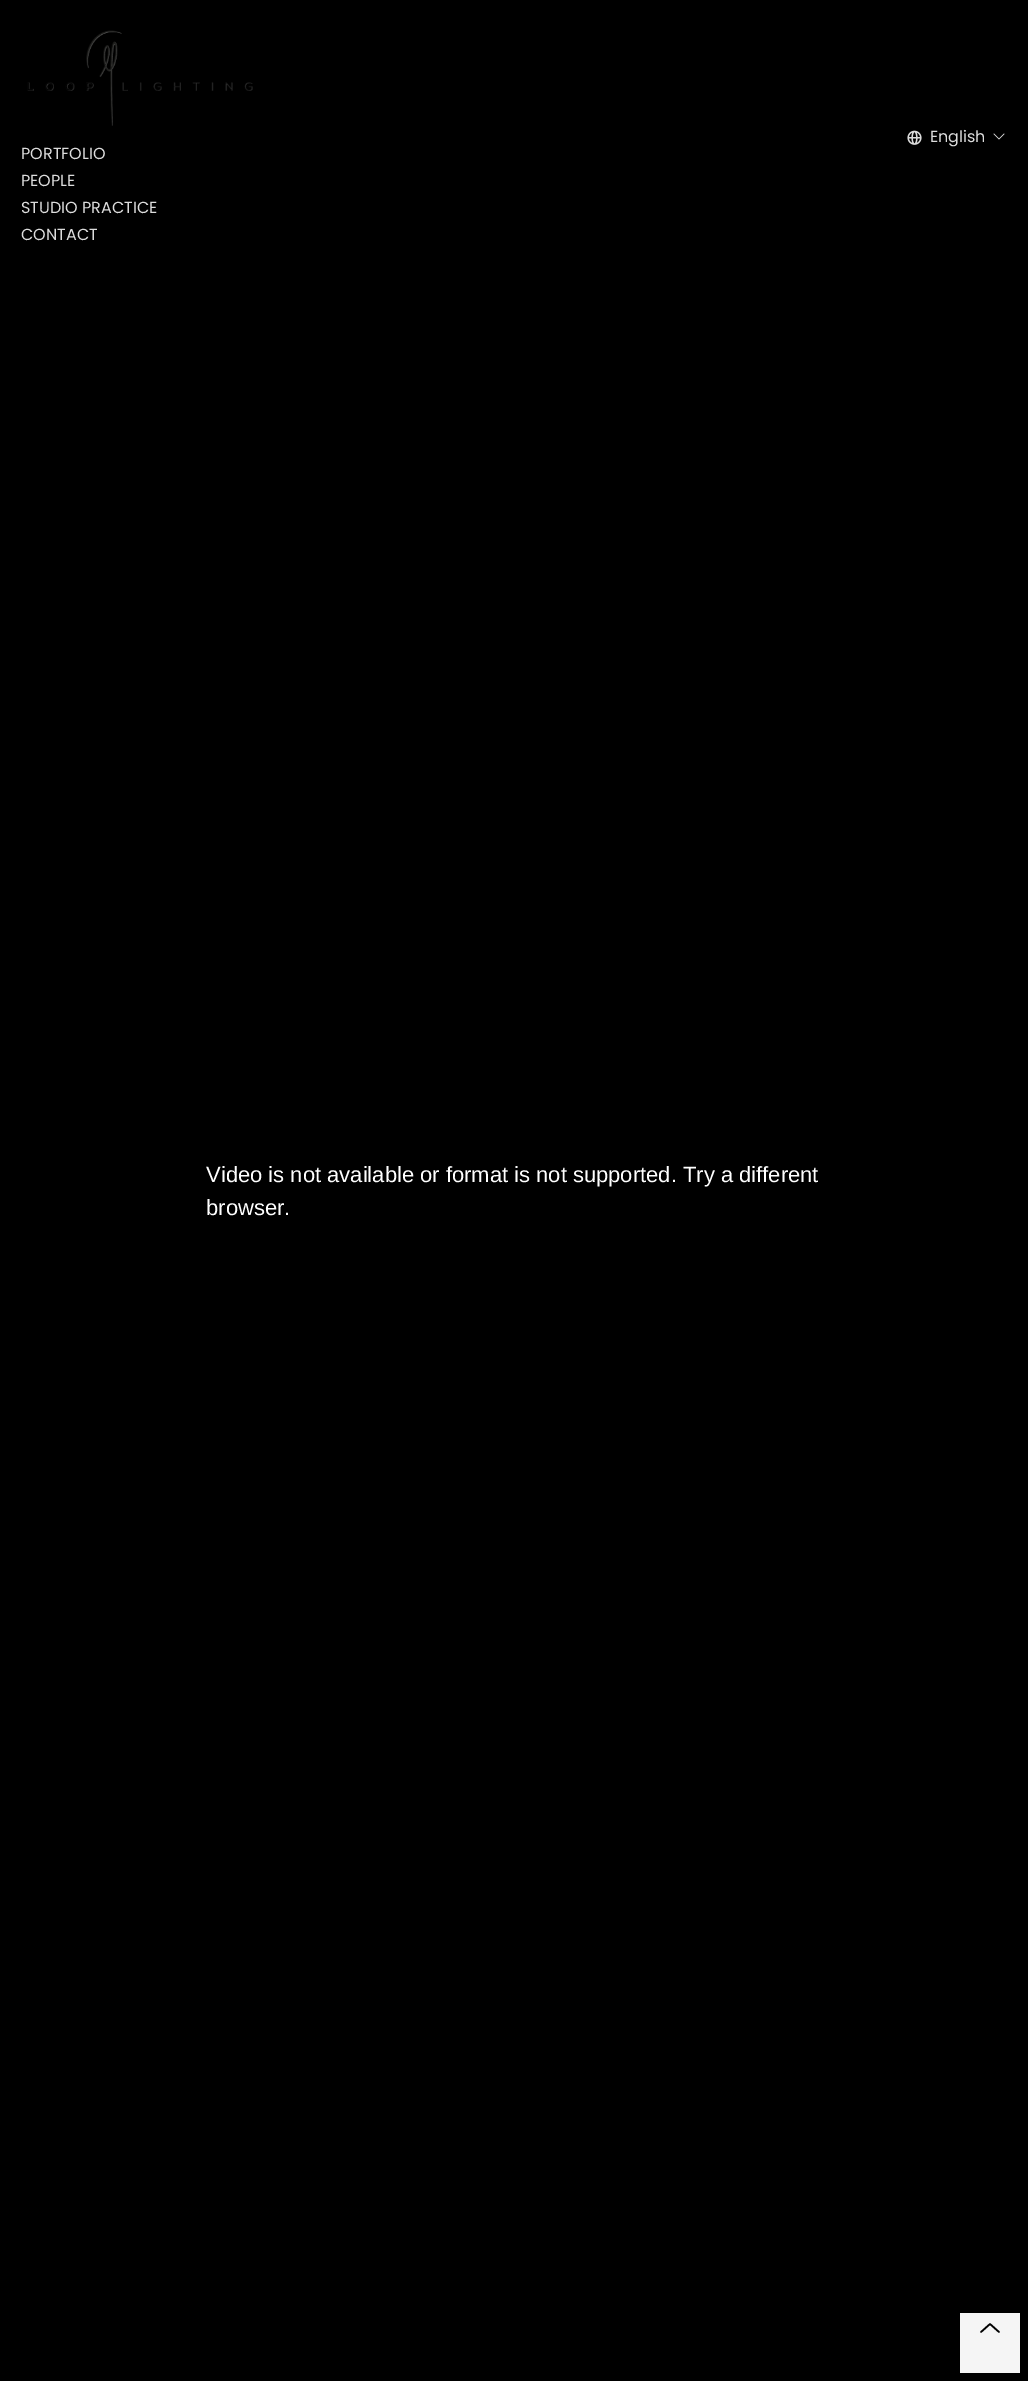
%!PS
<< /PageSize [1028 2381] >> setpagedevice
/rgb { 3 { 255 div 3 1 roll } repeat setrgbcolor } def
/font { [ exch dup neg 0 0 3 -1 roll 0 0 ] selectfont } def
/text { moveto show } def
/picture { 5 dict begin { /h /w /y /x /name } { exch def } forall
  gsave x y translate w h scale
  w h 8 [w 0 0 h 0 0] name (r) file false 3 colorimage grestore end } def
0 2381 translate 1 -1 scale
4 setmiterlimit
0 0 0 rgb
0 0 1028 2381 rectfill
(img_01.rgb) 907 130 15 15 picture
220 220 220 rgb
0.7 setlinewidth
2 setlinecap
1004 134 moveto -5 5 rlineto -5 -5 rlineto stroke
(img_02.rgb) 27 30 226 96 picture
245 245 245 rgb
960 2313 60 60 rectfill
0 0 0 rgb
1.6 setlinewidth
1 setlinecap
1 setlinejoin
981 2332 moveto 9 -8 rlineto 9 8 rlineto stroke
/Poppins-Regular 16 font
220 220 220 rgb
(English) 930 142 text
(PORTFOLIO) 21 159 text
(PEOPLE) 21 186 text
(STUDIO PRACTICE) 21 213 text
(CONTACT) 21 240 text
/LiberationSans-Regular 22 font
255 255 255 rgb
(Video is not available or format is not supported. Try a different) 206 1182 text
(browser.) 206 1215 text
showpage
